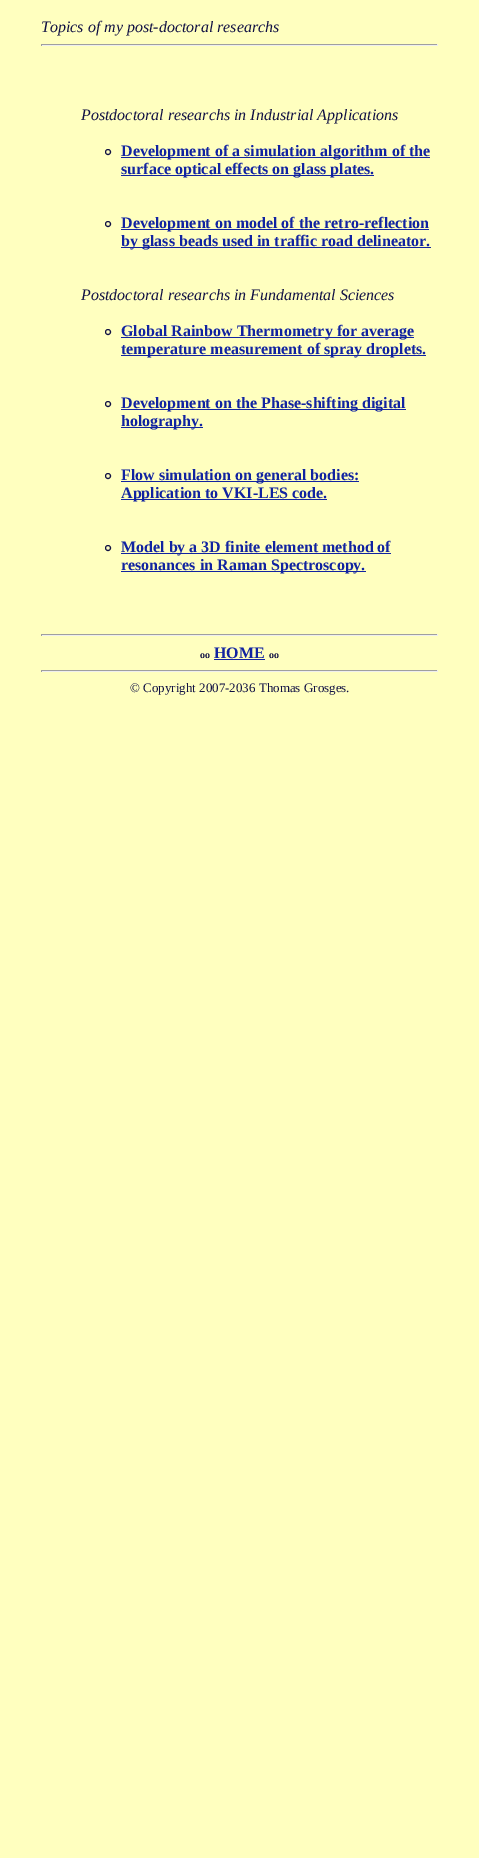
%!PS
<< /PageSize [479 1858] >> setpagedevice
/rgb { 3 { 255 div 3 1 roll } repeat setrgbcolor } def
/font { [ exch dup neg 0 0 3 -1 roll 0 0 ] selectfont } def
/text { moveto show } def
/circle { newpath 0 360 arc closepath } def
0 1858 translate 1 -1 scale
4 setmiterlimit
255 255 191 rgb
0 0 479 1858 rectfill
159 159 159 rgb
41 44 397 1 rectfill
238 238 238 rgb
437 44 1 2 rectfill
41 45 397 1 rectfill
159 159 159 rgb
41 44 1 2 rectfill
17 17 68 rgb
108 152 2.5 circle stroke
17 35 161 rgb
121 157 309 1 rectfill
121 175 253 1 rectfill
17 17 68 rgb
108 224 2.5 circle stroke
17 35 161 rgb
121 229 308 1 rectfill
121 247 310 1 rectfill
17 17 68 rgb
108 332 2.5 circle stroke
17 35 161 rgb
121 337 293 1 rectfill
121 355 305 1 rectfill
17 17 68 rgb
108 404 2.5 circle stroke
17 35 161 rgb
121 409 285 1 rectfill
121 427 82 1 rectfill
17 17 68 rgb
108 476 2.5 circle stroke
17 35 161 rgb
121 481 238 1 rectfill
121 499 206 1 rectfill
17 17 68 rgb
108 548 2.5 circle stroke
17 35 161 rgb
121 553 270 1 rectfill
121 571 245 1 rectfill
159 159 159 rgb
41 634 397 1 rectfill
238 238 238 rgb
437 634 1 2 rectfill
41 635 397 1 rectfill
159 159 159 rgb
41 634 1 2 rectfill
17 35 161 rgb
214 659 51 1 rectfill
159 159 159 rgb
41 670 397 1 rectfill
238 238 238 rgb
437 670 1 2 rectfill
41 671 397 1 rectfill
159 159 159 rgb
41 670 1 2 rectfill
/LiberationSerif-Italic 16 font
17 17 68 rgb
(Topics of my post-doctoral researchs) 41 32 text
(Postdoctoral researchs in Industrial Applications) 81 120 text
/LiberationSerif-Bold 16 font
17 35 161 rgb
(Development of a simulation algorithm of the) 121 156 text
(surface optical effects on glass plates.) 121 174 text
(Development on model of the retro-reflection) 121 228 text
(by glass beads used in traffic road delineator.) 121 246 text
/LiberationSerif-Italic 16 font
17 17 68 rgb
(Postdoctoral researchs in Fundamental Sciences) 81 300 text
/LiberationSerif-Bold 16 font
17 35 161 rgb
(Global Rainbow Thermometry for average) 121 336 text
(temperature measurement of spray droplets.) 121 354 text
(Development on the Phase-shifting digital) 121 408 text
(holography.) 121 426 text
(Flow simulation on general bodies:) 121 480 text
(Application to VKI-LES code.) 121 498 text
(Model by a 3D finite element method of) 121 552 text
(resonances in Raman Spectroscopy.) 121 570 text
/LiberationSerif-Bold 10 font
17 17 68 rgb
(oo) 200 658 text
/LiberationSerif-Bold 16 font
17 35 161 rgb
(HOME) 214 658 text
/LiberationSerif-Bold 10 font
17 17 68 rgb
(oo) 269 658 text
/LiberationSerif-Regular 13 font
(© Copyright 2007-2036 Thomas Grosges.) 130 692 text
showpage
